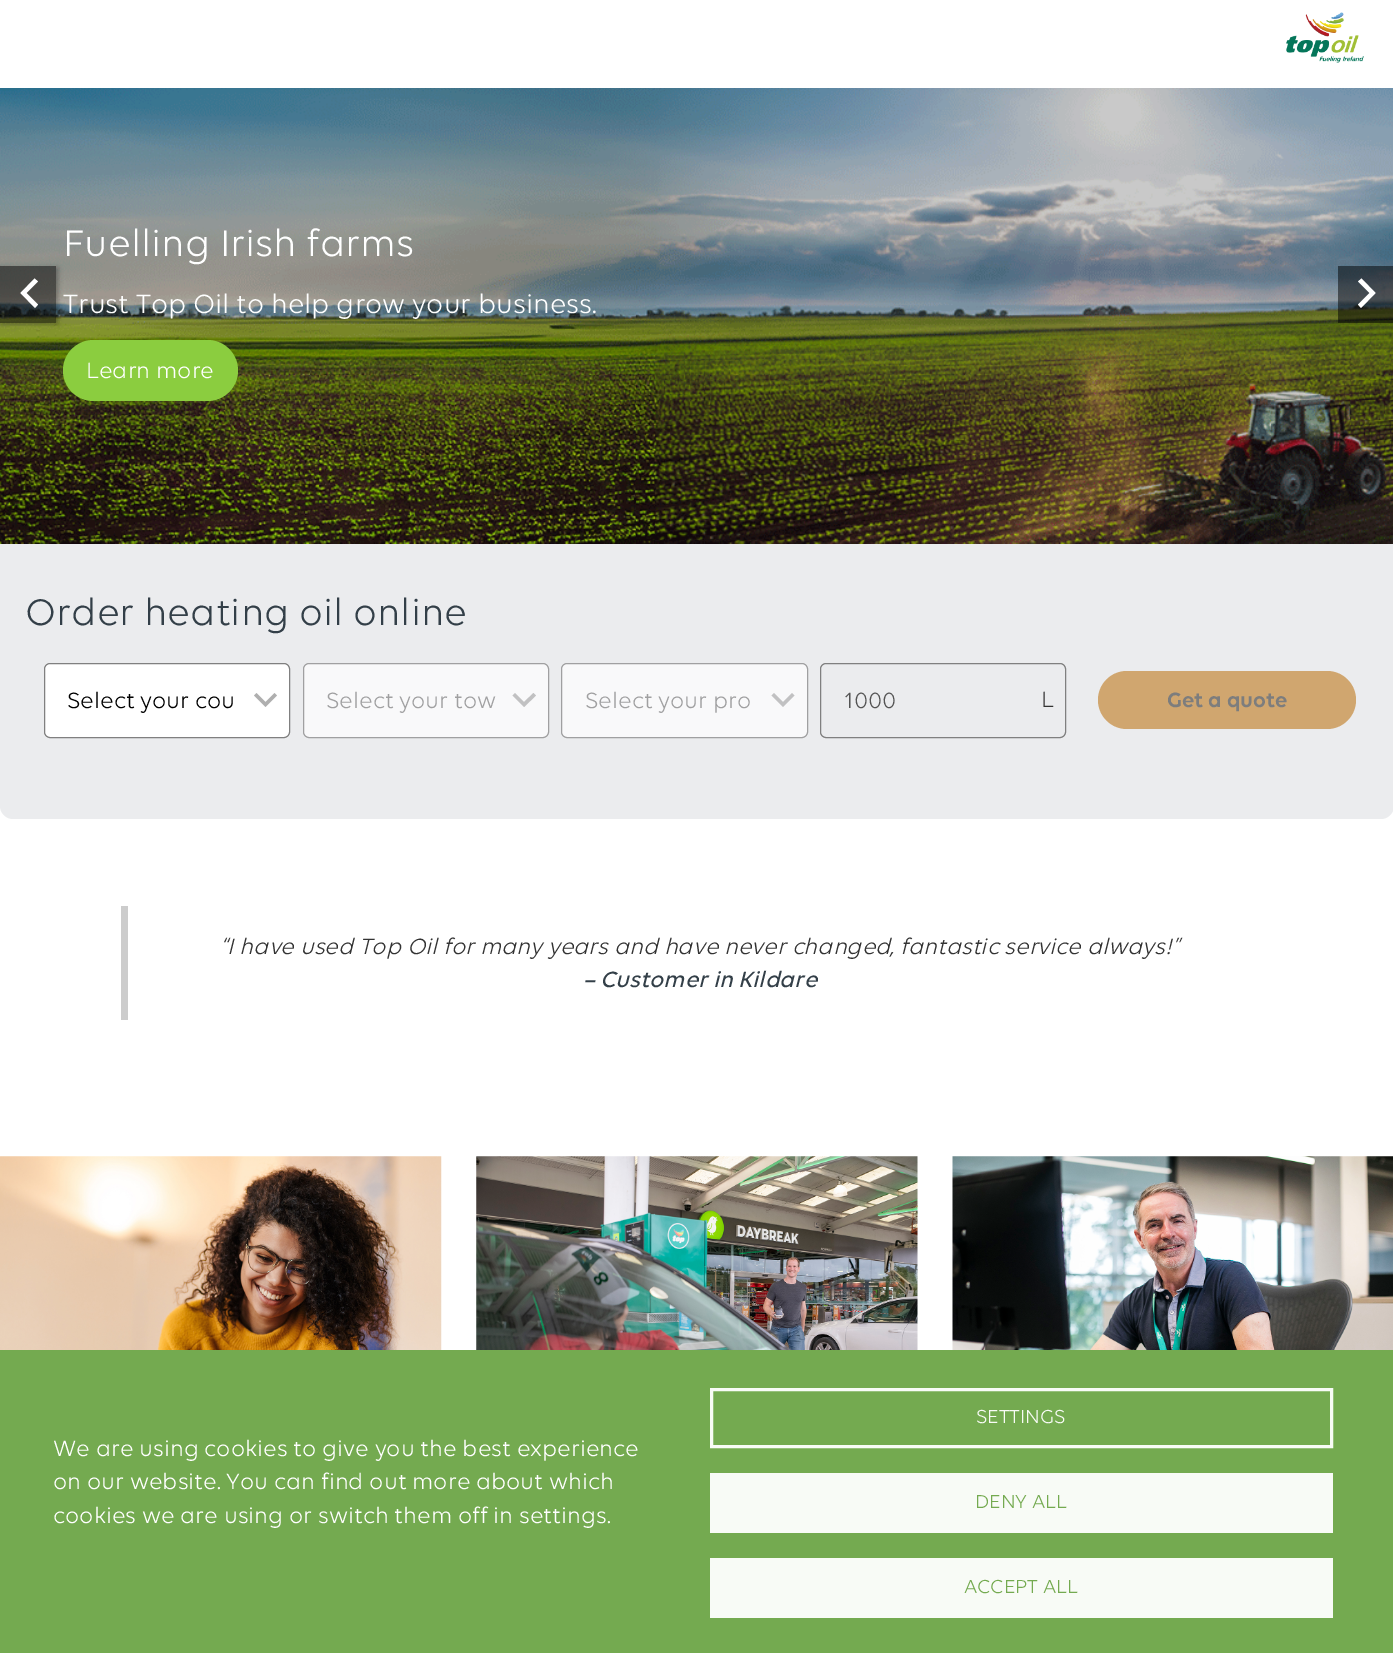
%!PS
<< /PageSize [1393 1653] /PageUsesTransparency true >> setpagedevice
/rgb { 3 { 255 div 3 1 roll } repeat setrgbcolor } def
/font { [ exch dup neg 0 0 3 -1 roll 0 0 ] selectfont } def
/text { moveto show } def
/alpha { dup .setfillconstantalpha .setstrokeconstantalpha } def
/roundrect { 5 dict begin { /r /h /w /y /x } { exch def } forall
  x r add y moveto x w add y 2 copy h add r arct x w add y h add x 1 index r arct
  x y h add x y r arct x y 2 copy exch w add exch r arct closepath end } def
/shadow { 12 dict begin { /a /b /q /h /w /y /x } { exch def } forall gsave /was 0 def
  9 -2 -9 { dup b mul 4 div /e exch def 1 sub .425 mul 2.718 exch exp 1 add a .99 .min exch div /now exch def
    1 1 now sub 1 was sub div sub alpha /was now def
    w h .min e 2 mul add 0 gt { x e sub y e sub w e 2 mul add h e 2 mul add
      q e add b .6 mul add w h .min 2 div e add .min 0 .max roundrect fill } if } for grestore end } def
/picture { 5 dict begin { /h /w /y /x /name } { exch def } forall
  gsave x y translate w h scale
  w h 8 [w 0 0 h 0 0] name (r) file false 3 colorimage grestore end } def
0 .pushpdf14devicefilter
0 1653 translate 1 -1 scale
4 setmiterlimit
255 255 255 rgb
0 0 1393 1653 rectfill
(img_01.rgb) 1286 12 78 51 picture
235 236 238 rgb
0 543 moveto 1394 0 rlineto 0 263 rlineto 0 7 -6 13 -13 13 rcurveto -1368 0 rlineto -7 0 -13 -6 -13 -13 rcurveto closepath fill
(img_02.rgb) 0 88 1393 456 picture
139 205 63 rgb
63 340 175 61 30.5 roundrect fill
gsave
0 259 moveto 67 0 rlineto 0 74 rlineto -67 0 rlineto closepath 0 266 moveto 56 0 rlineto 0 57 rlineto -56 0 rlineto closepath eoclip newpath
0 0 0 rgb
1 268 57 56 0 2.5 0.3 shadow
grestore
0.5 alpha
0 0 0 rgb
0 266 56 57 rectfill
1 alpha
255 255 255 rgb
34.5 278.5 moveto 3.5 3 rlineto -11.5 11.5 rlineto 11.5 11.5 rlineto -3 3.5 rlineto -14.5 -15 rlineto closepath eofill
0.5 alpha
0 0 0 rgb
1338 266 55 57 rectfill
1 alpha
255 255 255 rgb
1361.5 278.5 moveto -3.5 3 rlineto 11.5 11.5 rlineto -11.5 11.5 rlineto 3 3.5 rlineto 14.5 -15 rlineto closepath eofill
44 663 246 75 6 roundrect fill
175 175 175 rgb
254 695.5 moveto 2.5 -2.5 rlineto 9 9 rlineto 9 -9 rlineto 2.5 2.5 rlineto -11.5 11.5 rlineto closepath eofill
128 128 128 rgb
44.5 663.5 245 74 5.5 roundrect stroke
249 249 250 rgb
303 663 246 75 6 roundrect fill
193 193 194 rgb
512.5 695.5 moveto 2.5 -2.5 rlineto 9 9 rlineto 9.5 -9 rlineto 2.5 2.5 rlineto -12 11.5 rlineto closepath eofill
160 160 161 rgb
303.5 663.5 245 74 5.5 roundrect stroke
249 249 250 rgb
561 663 247 75 6 roundrect fill
193 193 194 rgb
771.5 695.5 moveto 2.5 -2.5 rlineto 9 9 rlineto 9 -9 rlineto 2.5 2.5 rlineto -11.5 11.5 rlineto closepath eofill
160 160 161 rgb
561.5 663.5 246 74 5.5 roundrect stroke
128 128 128 rgb
820.5 663.5 245 74 5.5 roundrect stroke
208 166 111 rgb
1098 671 258 58 29 roundrect fill
204 204 204 rgb
121 906 7 114 rectfill
(img_03.rgb) 0 1156 442 194 picture
(img_04.rgb) 476 1156 442 194 picture
(img_05.rgb) 952 1156 441 194 picture
116 170 80 rgb
0 1350 1393 303 rectfill
248 251 246 rgb
3 setlinewidth
711.5 1389.5 620 57 rectstroke
710 1473 623 60 rectfill
710 1558 623 60 rectfill
/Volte-Regular 39.9 font
255 255 255 rgb
(Fuelling Irish farms) 63 256 text
/Volte-Regular 28.5 font
(Trust Top Oil to help grow your business.) 63 313 text
/Volte-Regular 23.75 font
(Learn more) 86 378 text
/Volte-Regular 39.9 font
51 63 72 rgb
(Order heating oil online) 25 625 text
/Volte-Regular 23.75 font
0 0 0 rgb
(Select your cou) 67 708 text
160 160 161 rgb
(Select your tow) 326 708 text
(Select your pro) 585 708 text
84 84 84 rgb
(1000) 844 708 text
51 51 51 rgb
(L) 1041 707 text
/Volte-SemiBold 22.25 font
125 125 125 rgb
(Get a quote) 1167 707 text
/Volte-Italic 23.75 font
51 51 51 rgb
(“I have used Top Oil for many years and have never changed, fantastic service always!”) 220 954 text
/Volte-MediumItalic 23.75 font
51 63 72 rgb
(– Customer in Kildare) 583 987 text
/Volte-Regular 23.75 font
255 255 255 rgb
(We are using cookies to give you the best experience) 53 1456 text
(on our website. You can find out more about which) 53 1489 text
(cookies we are using or switch them off in settings.) 53 1523 text
/Volte-Regular 20.25 font
248 251 246 rgb
(SETTINGS) 976 1423 text
116 170 80 rgb
(DENY ALL) 975 1508 text
(ACCEPT ALL) 964 1593 text
.poppdf14devicefilter showpage
